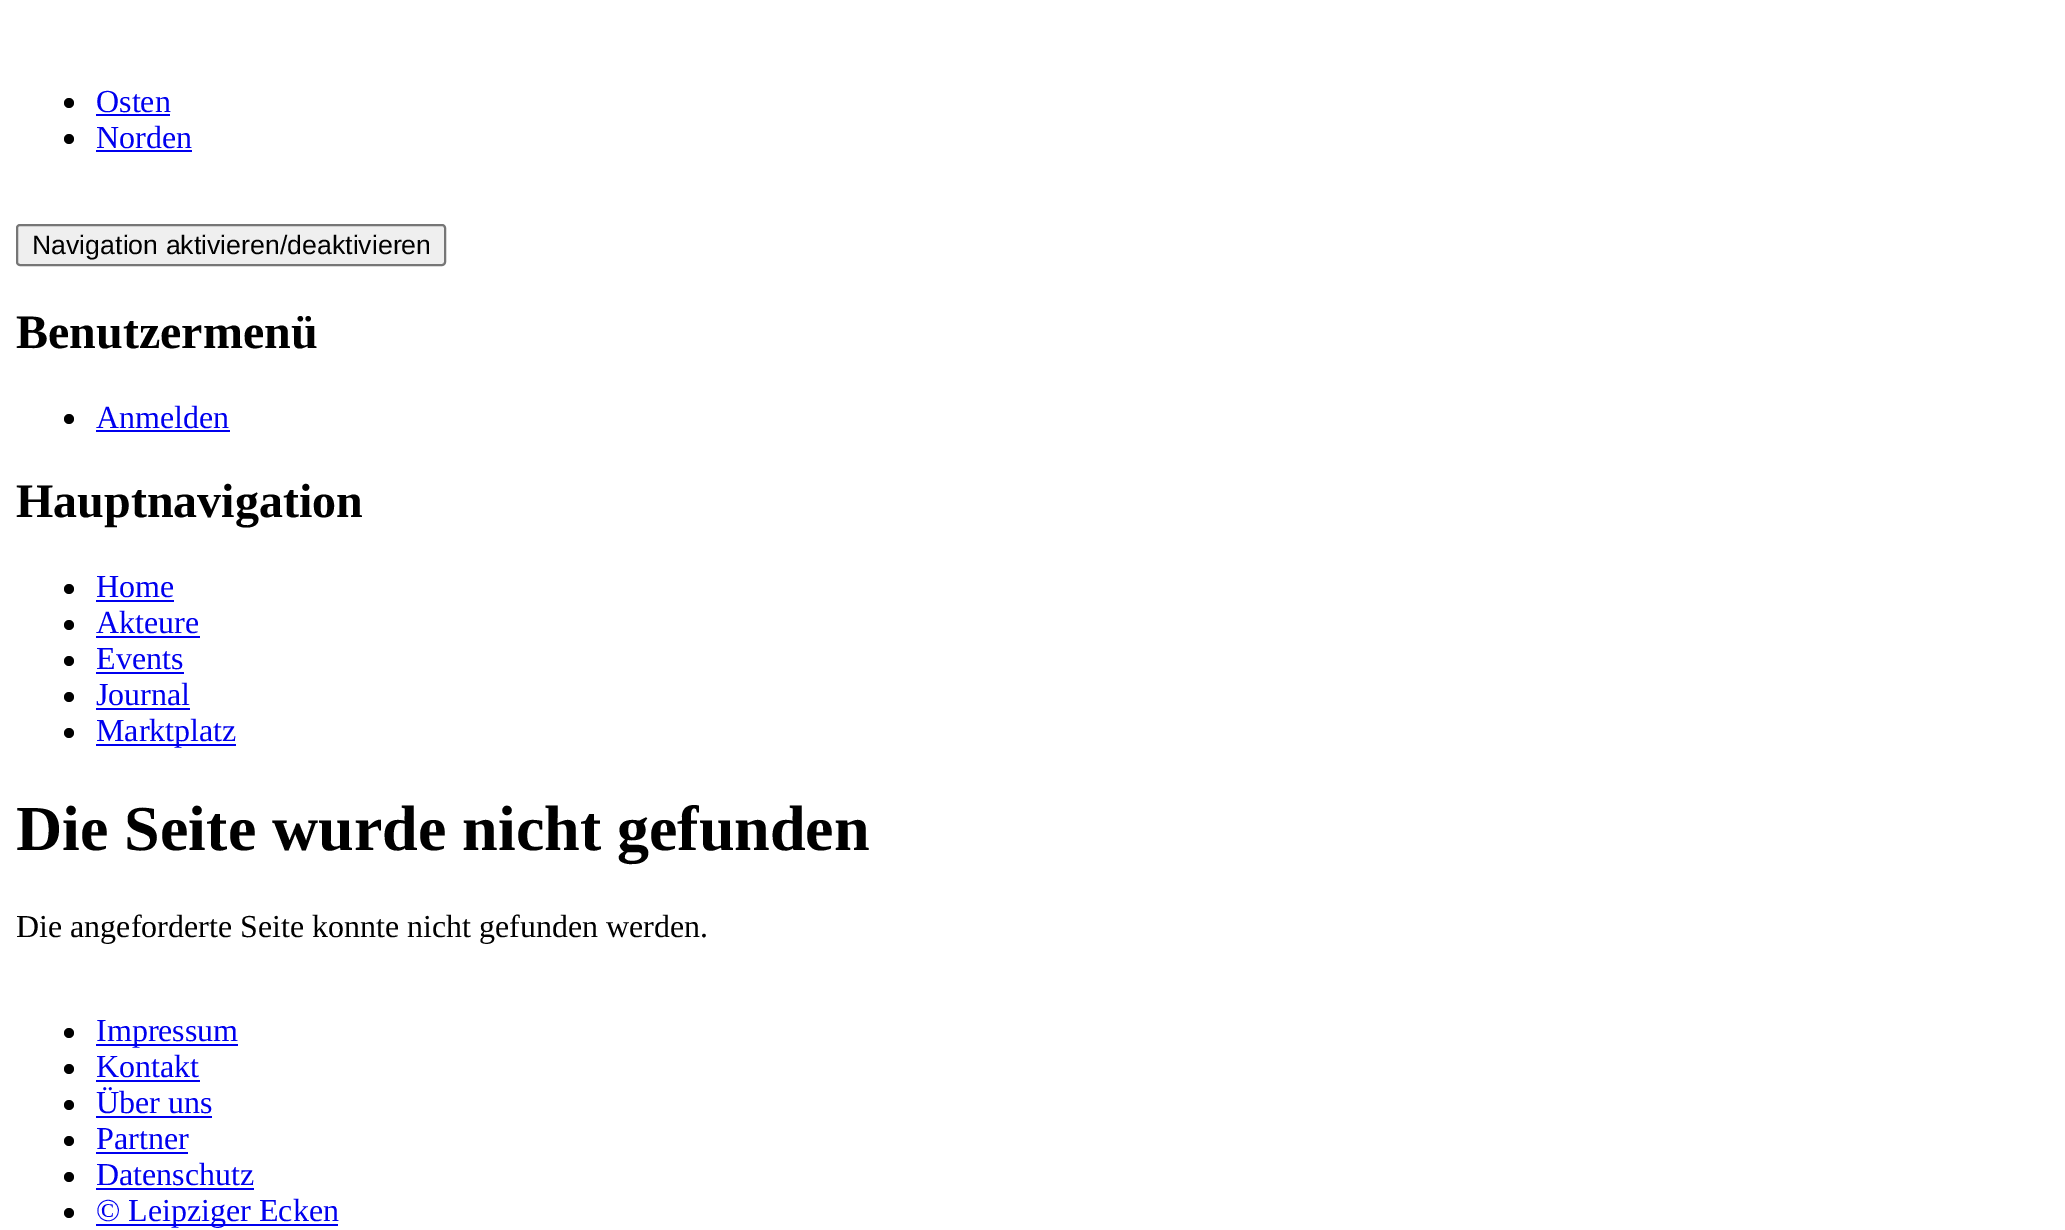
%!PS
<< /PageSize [2065 1230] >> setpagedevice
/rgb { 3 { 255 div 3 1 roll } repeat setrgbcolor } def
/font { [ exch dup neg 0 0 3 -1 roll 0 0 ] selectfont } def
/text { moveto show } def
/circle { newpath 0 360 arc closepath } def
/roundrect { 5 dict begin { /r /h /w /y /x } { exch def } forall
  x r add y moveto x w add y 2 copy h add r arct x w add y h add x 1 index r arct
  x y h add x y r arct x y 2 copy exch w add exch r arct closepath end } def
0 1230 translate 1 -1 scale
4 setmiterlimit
255 255 255 rgb
0 0 2065 1230 rectfill
0 0 0 rgb
69 103 5 circle fill
0 0 238 rgb
96 114 74 2 rectfill
0 0 0 rgb
69 139 5 circle fill
0 0 238 rgb
96 150 96 2 rectfill
239 239 239 rgb
17 225 428 40 3 roundrect gsave fill grestore
118 118 118 rgb
2 setlinewidth
stroke
0 0 0 rgb
69 419 5 circle fill
0 0 238 rgb
96 430 134 2 rectfill
0 0 0 rgb
69 589 5 circle fill
0 0 238 rgb
96 600 78 2 rectfill
0 0 0 rgb
69 625 5 circle fill
0 0 238 rgb
96 636 104 2 rectfill
0 0 0 rgb
69 661 5 circle fill
0 0 238 rgb
96 672 88 2 rectfill
0 0 0 rgb
69 697 5 circle fill
0 0 238 rgb
96 708 94 2 rectfill
0 0 0 rgb
69 733 5 circle fill
0 0 238 rgb
96 744 140 2 rectfill
0 0 0 rgb
69 1033 5 circle fill
0 0 238 rgb
96 1044 142 2 rectfill
0 0 0 rgb
69 1069 5 circle fill
0 0 238 rgb
96 1080 104 2 rectfill
0 0 0 rgb
69 1105 5 circle fill
0 0 238 rgb
96 1116 116 2 rectfill
0 0 0 rgb
69 1141 5 circle fill
0 0 238 rgb
96 1152 92 2 rectfill
0 0 0 rgb
69 1177 5 circle fill
0 0 238 rgb
96 1188 158 2 rectfill
0 0 0 rgb
69 1213 5 circle fill
0 0 238 rgb
96 1224 242 2 rectfill
/LiberationSerif-Regular 32 font
(Osten) 96 112 text
(Norden) 96 148 text
/LiberationSans-Regular 26.7 font
0 0 0 rgb
(Navigation aktivieren/deaktivieren) 32 254 text
/LiberationSerif-Bold 48 font
(Benutzermenü) 16 348 text
/LiberationSerif-Regular 32 font
0 0 238 rgb
(Anmelden) 96 428 text
/LiberationSerif-Bold 48 font
0 0 0 rgb
(Hauptnavigation) 16 517 text
/LiberationSerif-Regular 32 font
0 0 238 rgb
(Home) 96 597 text
(Akteure) 96 633 text
(Events) 96 669 text
(Journal) 96 705 text
(Marktplatz) 96 741 text
/LiberationSerif-Bold 64 font
0 0 0 rgb
(Die Seite wurde nicht gefunden) 16 850 text
/LiberationSerif-Regular 32 font
(Die angeforderte Seite konnte nicht gefunden werden.) 16 937 text
0 0 238 rgb
(Impressum) 96 1041 text
(Kontakt) 96 1077 text
(Über uns) 96 1113 text
(Partner) 96 1149 text
(Datenschutz) 96 1185 text
(© Leipziger Ecken) 96 1221 text
showpage
